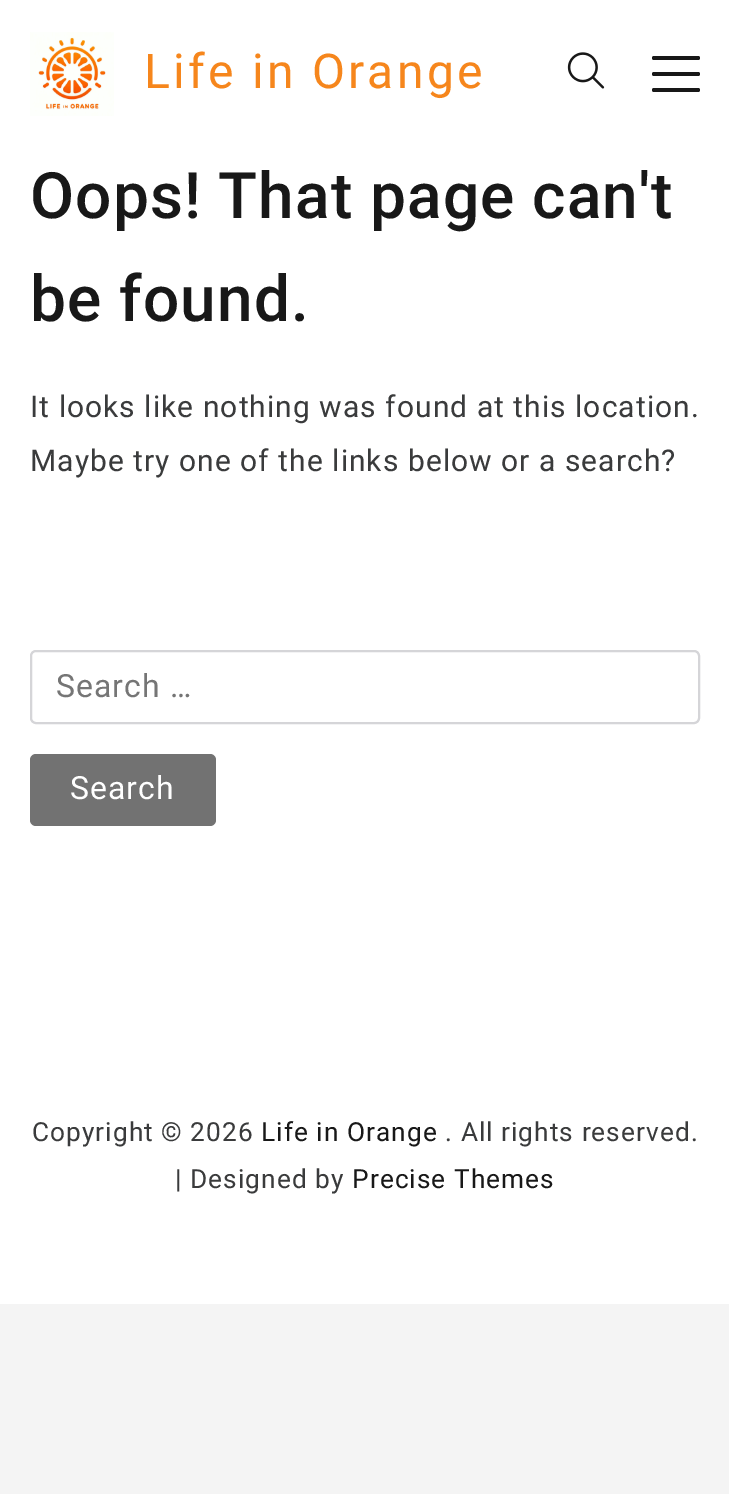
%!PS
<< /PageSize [729 1494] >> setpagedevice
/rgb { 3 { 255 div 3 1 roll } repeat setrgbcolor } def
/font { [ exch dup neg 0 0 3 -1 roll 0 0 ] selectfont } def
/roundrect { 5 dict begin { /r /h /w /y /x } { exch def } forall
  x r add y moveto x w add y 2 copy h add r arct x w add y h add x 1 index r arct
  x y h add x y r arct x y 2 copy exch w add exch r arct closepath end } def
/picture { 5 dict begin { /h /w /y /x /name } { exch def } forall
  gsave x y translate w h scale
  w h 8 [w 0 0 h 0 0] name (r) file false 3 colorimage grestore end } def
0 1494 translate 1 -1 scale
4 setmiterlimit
244 244 244 rgb
0 0 729 1494 rectfill
255 255 255 rgb
0 0 729 1304 rectfill
(img_01.rgb) 30 32 84 84 picture
(img_02.rgb) 567 52 38 37 picture
24 24 24 rgb
652 56 48 4 2 roundrect fill
652 72 48 4 2 roundrect fill
652 88 48 4 2 roundrect fill
213 213 216 rgb
2 setlinewidth
31 651 668 72 5 roundrect stroke
114 114 114 rgb
30 754 186 72 6 roundrect fill
/Roboto-Regular 48 font
246 134 28 rgb
144 88 moveto 3.25 0 (Life in Orange) ashow
/Roboto-Medium 64 font
24 24 24 rgb
30 218 moveto 1.05 0 (Oops! That page can't) ashow
30 321 moveto 1.05 0 (be found.) ashow
/Roboto-Regular 30 font
58 59 60 rgb
30 417 moveto 1.05 0 (It looks like nothing was found at this location.) ashow
30 471 moveto 1.05 0 (Maybe try one of the links below or a search?) ashow
/Roboto-Regular 32 font
117 117 117 rgb
56 697 moveto 1 0 (Search …) ashow
255 255 255 rgb
70 799 moveto 1 0 (Search) ashow
/Roboto-Regular 26.25 font
58 59 60 rgb
32 1141 moveto 1.05 0 (Copyright © 2026) ashow
24 24 24 rgb
261 1141 moveto 1.05 0 (Life in Orange) ashow
58 59 60 rgb
445 1141 moveto 1.05 0 (. All rights reserved.) ashow
175 1188 moveto 1.05 0 (| Designed by) ashow
24 24 24 rgb
352 1188 moveto 1.05 0 (Precise Themes) ashow
showpage
